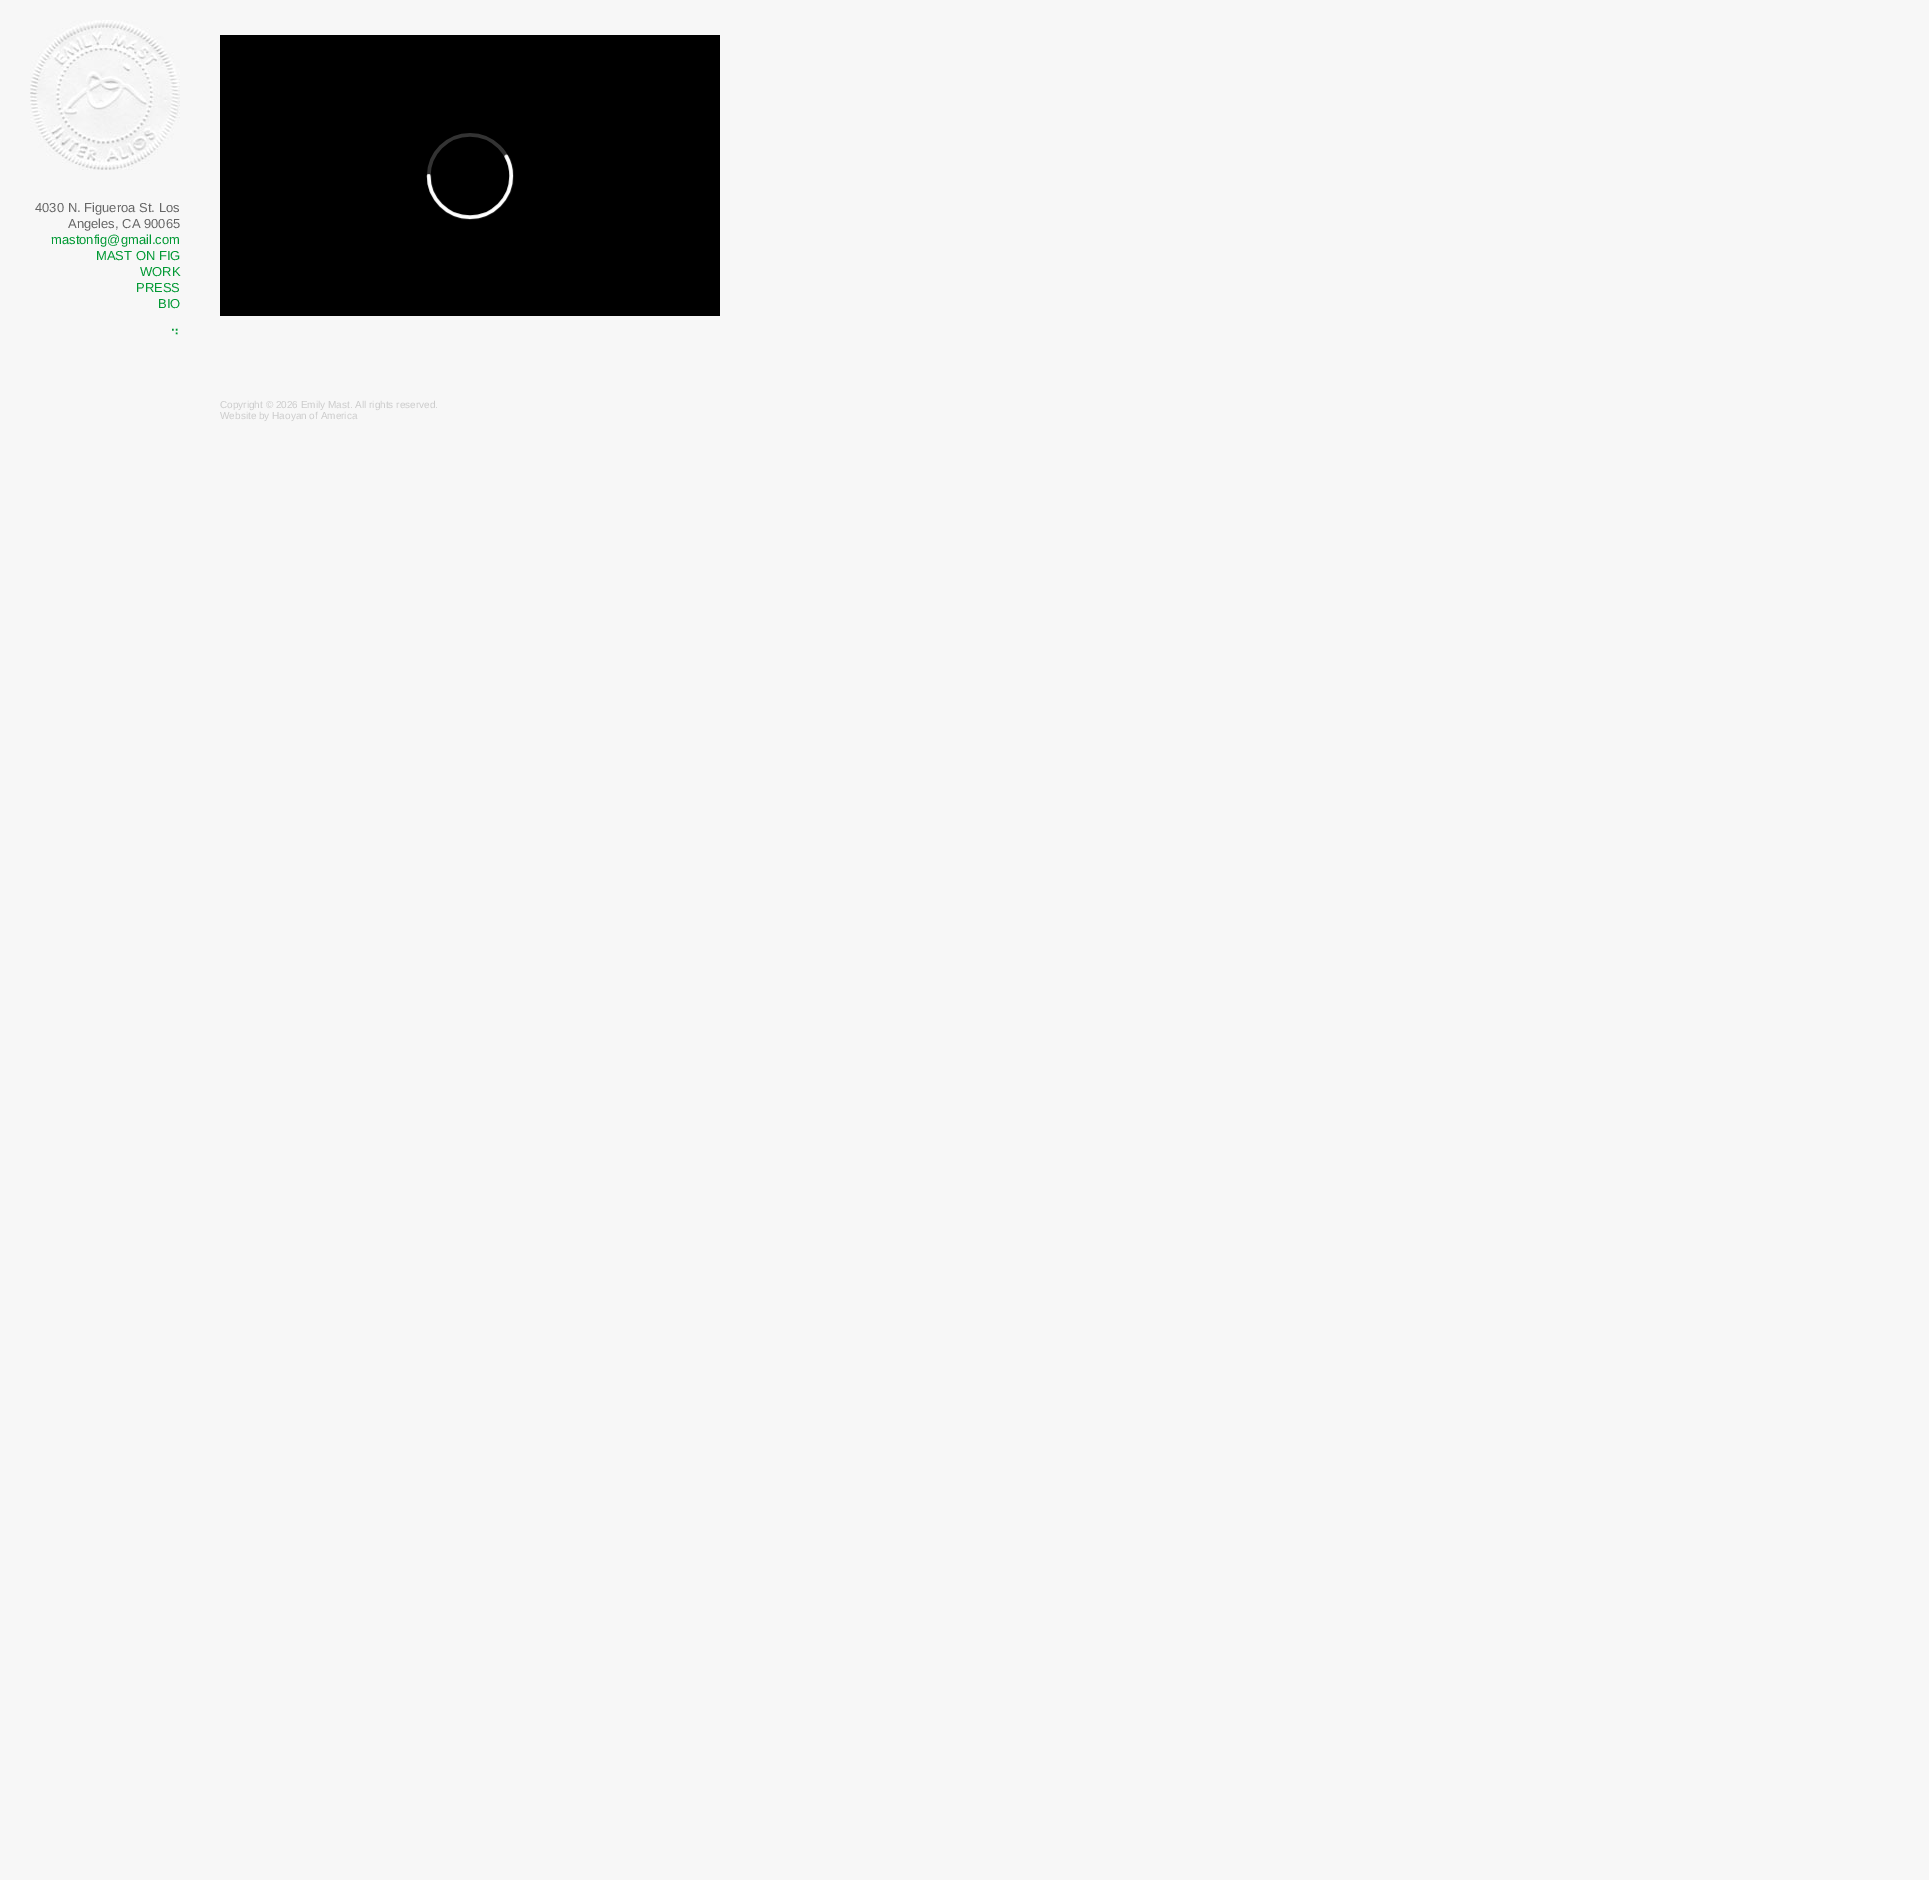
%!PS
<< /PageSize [1929 1880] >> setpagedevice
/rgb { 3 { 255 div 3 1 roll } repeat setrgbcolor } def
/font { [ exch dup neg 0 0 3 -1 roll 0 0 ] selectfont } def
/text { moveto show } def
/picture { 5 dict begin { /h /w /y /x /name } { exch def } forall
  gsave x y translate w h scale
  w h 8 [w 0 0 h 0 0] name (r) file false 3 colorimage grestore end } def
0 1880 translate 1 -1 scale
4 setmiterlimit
247 247 247 rgb
0 0 1929 1880 rectfill
(img_01.rgb) 30 20 150 150 picture
(img_02.rgb) 220 35 500 281 picture
/LiberationSans-Regular 13 font
102 102 102 rgb
(4030 N. Figueroa St. Los) 35 212 text
(Angeles, CA 90065) 68 228 text
0 153 51 rgb
(mastonfig@gmail.com) 51 244 text
(MAST ON FIG) 96 260 text
(WORK) 140 276 text
(PRESS) 136 292 text
(BIO) 158 308 text
/DejaVuSans-Regular 13 font
(⠙) 170 339 text
/LiberationSans-Regular 10 font
204 204 204 rgb
(Copyright © 2026 Emily Mast. All rights reserved.) 220 408 text
(Website by Haoyan of America) 220 419 text
showpage
